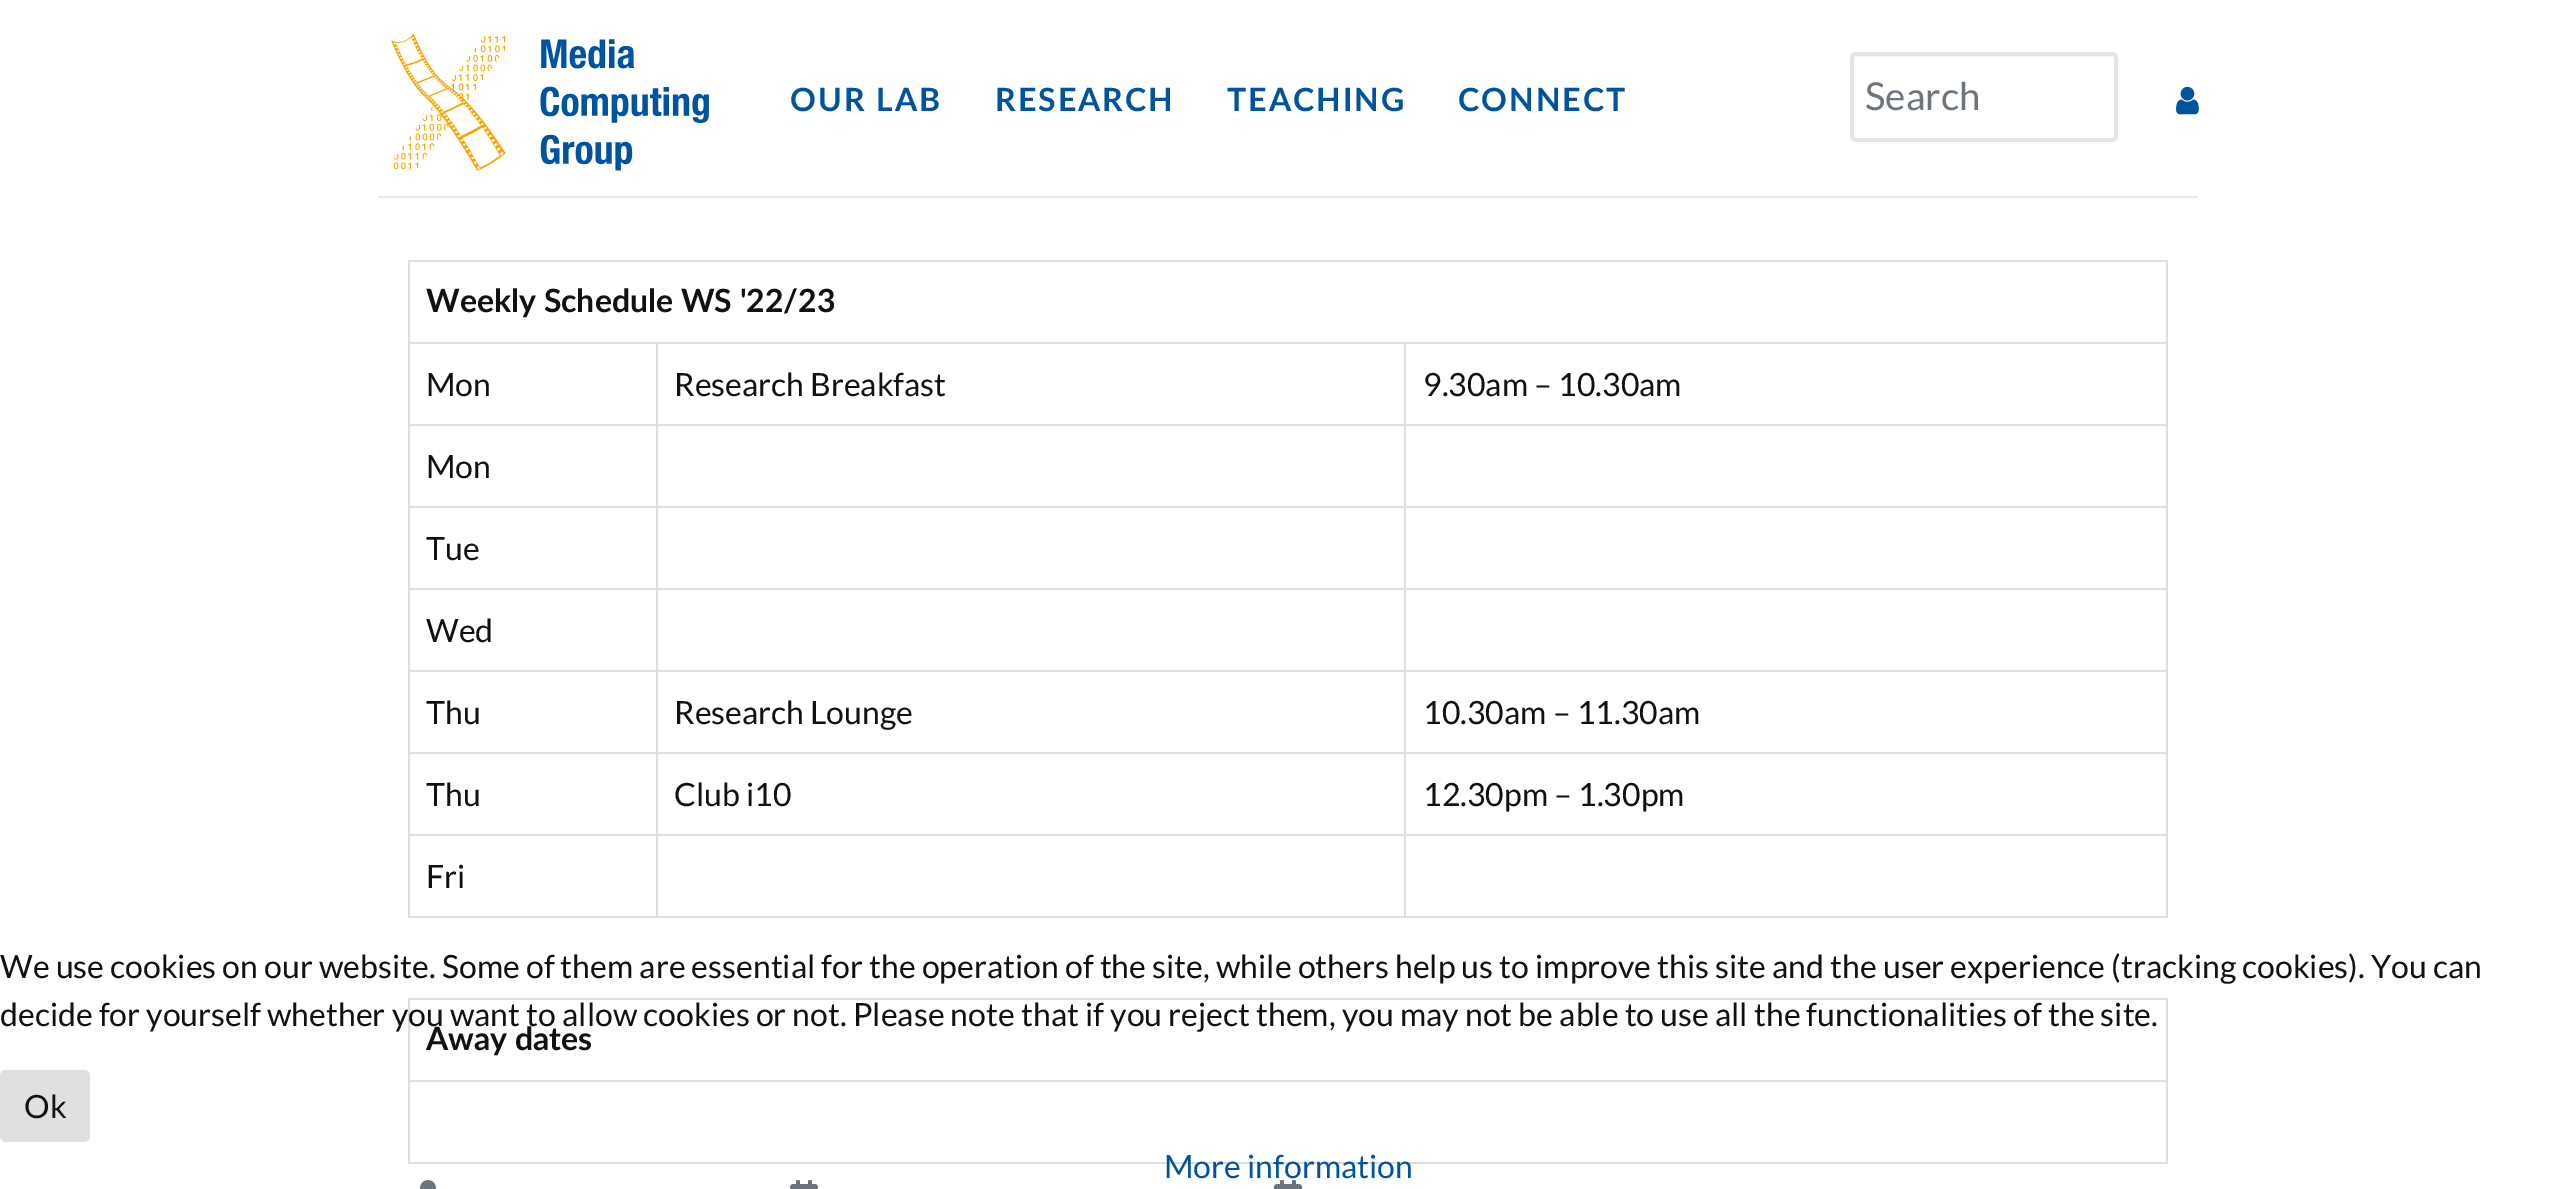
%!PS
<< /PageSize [2575 1189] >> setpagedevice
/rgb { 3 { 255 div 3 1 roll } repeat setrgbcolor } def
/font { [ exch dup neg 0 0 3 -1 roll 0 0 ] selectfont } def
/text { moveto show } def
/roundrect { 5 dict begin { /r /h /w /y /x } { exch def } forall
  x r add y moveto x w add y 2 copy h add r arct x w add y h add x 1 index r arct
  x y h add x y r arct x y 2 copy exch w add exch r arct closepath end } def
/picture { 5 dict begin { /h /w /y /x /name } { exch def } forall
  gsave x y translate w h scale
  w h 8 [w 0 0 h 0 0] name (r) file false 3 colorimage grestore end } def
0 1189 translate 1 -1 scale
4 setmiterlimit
255 255 255 rgb
0 0 2575 1189 rectfill
(img_01.rgb) 391 33 318 138 picture
230 230 230 rgb
4 setlinewidth
1852 54 264 86 4 roundrect stroke
(img_02.rgb) 2176 86 23 29 picture
378 196 1820 2 rectfill
222 222 222 rgb
408 260 1760 2 rectfill
2166 260 2 658 rectfill
408 916 1760 2 rectfill
408 260 2 658 rectfill
1404 342 764 2 rectfill
1404 424 764 2 rectfill
1404 506 764 2 rectfill
1404 588 764 2 rectfill
1404 670 764 2 rectfill
1404 752 764 2 rectfill
1404 834 764 2 rectfill
1404 834 2 84 rectfill
656 834 750 2 rectfill
1404 752 2 84 rectfill
656 752 750 2 rectfill
1404 670 2 84 rectfill
656 670 750 2 rectfill
1404 588 2 84 rectfill
656 588 750 2 rectfill
1404 506 2 84 rectfill
656 506 750 2 rectfill
1404 424 2 84 rectfill
656 424 750 2 rectfill
1404 342 2 84 rectfill
656 342 750 2 rectfill
656 834 2 84 rectfill
408 834 250 2 rectfill
656 752 2 84 rectfill
408 752 250 2 rectfill
656 670 2 84 rectfill
408 670 250 2 rectfill
656 588 2 84 rectfill
408 588 250 2 rectfill
656 506 2 84 rectfill
408 506 250 2 rectfill
656 424 2 84 rectfill
408 424 250 2 rectfill
656 342 2 84 rectfill
408 342 250 2 rectfill
408 998 1760 2 rectfill
2166 998 2 166 rectfill
408 1162 1760 2 rectfill
408 998 2 166 rectfill
408 1080 1760 2 rectfill
(img_03.rgb) 420 1180 16 9 picture
(img_04.rgb) 790 1180 28 9 picture
(img_04.rgb) 1274 1180 28 9 picture
224 224 224 rgb
0 1070 90 72 6 roundrect fill
/Lato-Bold 32 font
0 84 159 rgb
790 111 moveto 2 0 (OUR LAB) ashow
995 111 moveto 2 0 (RESEARCH) ashow
1227 111 moveto 2 0 (TEACHING) ashow
1458 111 moveto 2 0 (CONNECT) ashow
/Lato-Regular 38.5 font
108 117 125 rgb
(Search) 1865 110 text
/Lato-Bold 32 font
17 17 17 rgb
(Weekly Schedule WS '22/23) 426 312 text
/Lato-Regular 32 font
(Mon) 426 396 text
(Research Breakfast) 674 396 text
(9.30am – 10.30am) 1423 396 text
(Mon) 426 478 text
(Tue) 426 560 text
(Wed) 426 642 text
(Thu) 426 724 text
(Research Lounge) 674 724 text
(10.30am – 11.30am) 1423 724 text
(Thu) 426 806 text
(Club i10) 674 806 text
(12.30pm – 1.30pm) 1423 806 text
(Fri) 426 888 text
/Lato-Bold 32 font
(Away dates) 426 1050 text
/Lato-Regular 32 font
(We use cookies on our website. Some of them are essential for the operation of the site, while others help us to improve this site and the user experience \(tracking cookies\). You can) 0 978 text
(decide for yourself whether you want to allow cookies or not. Please note that if you reject them, you may not be able to use all the functionalities of the site.) 0 1026 text
(Ok) 24 1118 text
0 84 159 rgb
(More information) 1164 1178 text
showpage
